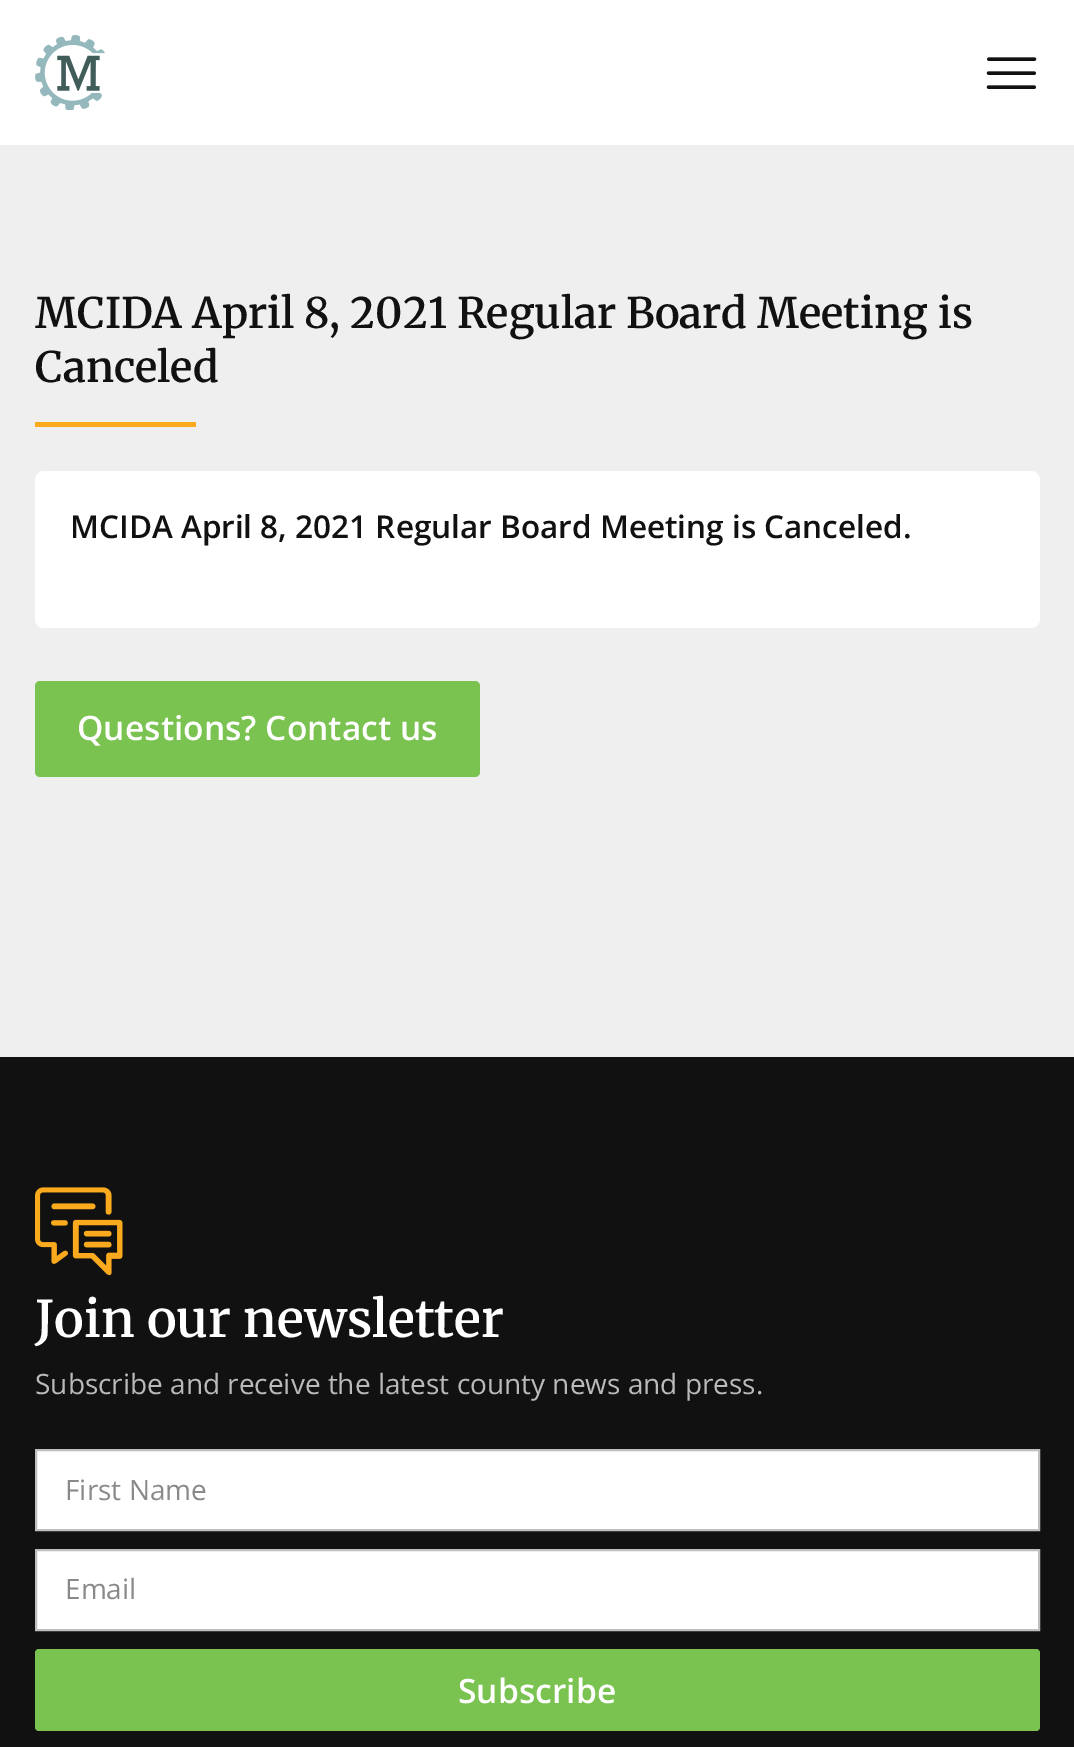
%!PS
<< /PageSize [1074 1747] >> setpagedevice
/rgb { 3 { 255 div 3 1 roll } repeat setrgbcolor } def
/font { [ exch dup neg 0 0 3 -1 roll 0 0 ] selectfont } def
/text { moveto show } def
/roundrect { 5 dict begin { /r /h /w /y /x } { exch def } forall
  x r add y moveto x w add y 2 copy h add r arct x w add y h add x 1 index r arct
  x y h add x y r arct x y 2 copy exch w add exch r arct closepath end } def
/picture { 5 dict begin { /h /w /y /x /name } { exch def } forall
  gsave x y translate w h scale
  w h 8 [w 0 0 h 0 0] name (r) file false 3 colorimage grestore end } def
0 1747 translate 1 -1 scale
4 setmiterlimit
255 255 255 rgb
0 0 1074 1747 rectfill
(img_01.rgb) 35 35 70 75 picture
(img_02.rgb) 986 57 51 32 picture
239 239 239 rgb
0 145 1074 912 rectfill
251 169 29 rgb
35 422 161 5 rectfill
255 255 255 rgb
35 471 1005 157 9 roundrect fill
123 195 81 rgb
35 681 445 96 5 roundrect fill
17 17 17 rgb
0 1057 1074 690 rectfill
(img_03.rgb) 35 1187 88 89 picture
255 255 255 rgb
36 1450 moveto 1003 0 rlineto 0 80 rlineto -1003 0 rlineto closepath gsave fill grestore
191 191 191 rgb
2 setlinewidth
stroke
255 255 255 rgb
36 1550 moveto 1003 0 rlineto 0 80 rlineto -1003 0 rlineto closepath gsave fill grestore
191 191 191 rgb
stroke
123 195 81 rgb
35 1649 1005 82 4 roundrect fill
/Merriweather-SemiBold 42 font
17 17 17 rgb
(MCIDA April 8, 2021 Regular Board Meeting is) 35 328 text
(Canceled) 35 382 text
/OpenSans-SemiBold 31.5 font
(MCIDA April 8, 2021 Regular Board Meeting is Canceled.) 70 538 text
/OpenSans-SemiBold 33.6 font
255 255 255 rgb
(Questions? Contact us) 77 740 text
/Merriweather-SemiBold 50.5 font
(Join our newsletter) 35 1337 text
/OpenSans-Regular 28 font
186 186 186 rgb
(Subscribe and receive the latest county news and press.) 35 1394 text
137 137 137 rgb
(First Name) 65 1500 text
(Email) 65 1599 text
/OpenSans-SemiBold 33.6 font
255 255 255 rgb
(Subscribe) 458 1703 text
showpage
